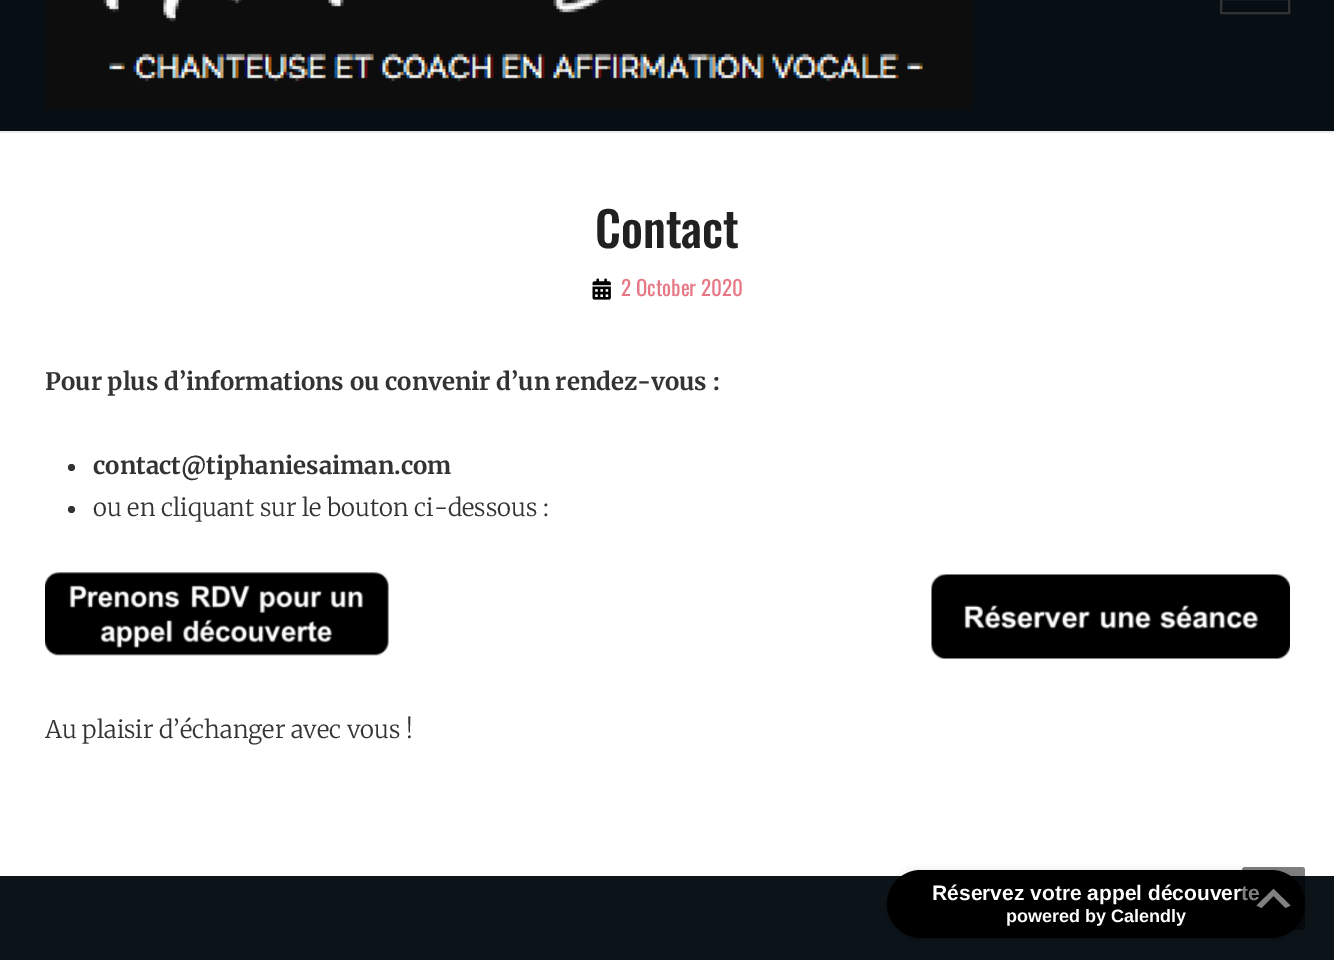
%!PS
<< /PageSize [1334 960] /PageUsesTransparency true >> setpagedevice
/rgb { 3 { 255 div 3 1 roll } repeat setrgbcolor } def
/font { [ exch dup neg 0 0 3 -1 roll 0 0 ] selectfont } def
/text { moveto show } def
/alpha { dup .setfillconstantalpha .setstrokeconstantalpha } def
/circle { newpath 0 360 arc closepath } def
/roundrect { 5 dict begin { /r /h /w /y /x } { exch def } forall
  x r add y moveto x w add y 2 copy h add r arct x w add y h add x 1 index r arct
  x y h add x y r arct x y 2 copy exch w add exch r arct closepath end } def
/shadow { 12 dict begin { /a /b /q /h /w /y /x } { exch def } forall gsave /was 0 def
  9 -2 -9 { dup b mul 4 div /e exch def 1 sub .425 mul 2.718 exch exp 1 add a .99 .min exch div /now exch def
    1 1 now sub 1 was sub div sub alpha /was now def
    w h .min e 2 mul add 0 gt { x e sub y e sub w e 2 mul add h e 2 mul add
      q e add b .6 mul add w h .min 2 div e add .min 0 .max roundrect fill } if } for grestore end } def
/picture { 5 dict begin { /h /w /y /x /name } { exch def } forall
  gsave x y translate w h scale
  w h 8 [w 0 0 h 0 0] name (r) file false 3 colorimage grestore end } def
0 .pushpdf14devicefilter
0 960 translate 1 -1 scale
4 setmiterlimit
255 255 255 rgb
0 0 1334 960 rectfill
7 15 20 rgb
0 0 1334 131 rectfill
(img_01.rgb) 45 0 927 110 picture
51 51 51 rgb
2 setlinewidth
1221 -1 68 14 rectstroke
235 235 235 rgb
0 131 1334 2 rectfill
(img_02.rgb) 592 278 19 22 picture
51 51 51 rgb
71.5 467.5 3.5 circle fill
71.5 509.5 3.5 circle fill
(img_03.rgb) 45 572 344 84 picture
(img_04.rgb) 931 574 359 85 picture
12 20 25 rgb
0 876 1334 84 rectfill
0 0 0 rgb
887 873 418 68 34 4 0.25 shadow
887 870 418 68 34 roundrect fill
/Oswald-Medium 48 font
33 33 33 rgb
(Contact) 595 248 text
/Oswald-Regular 21 font
232 119 133 rgb
(2 October 2020) 621 296 text
/Merriweather-Bold 24 font
51 51 51 rgb
(Pour plus d’informations ou convenir d’un rendez-vous :) 45 390 text
(contact@tiphaniesaiman.com) 93 474 text
/Merriweather-Light 24 font
(ou en cliquant sur le bouton ci-dessous :) 93 516 text
(Au plaisir d’échanger avec vous !) 45 738 text
/LiberationSans-Bold 21 font
255 255 255 rgb
(Réservez votre appel découverte) 932 900 text
/LiberationSans-Bold 18 font
(powered by Calendly) 1006 922 text
0.5 alpha
0 0 0 rgb
1242 867 63 63 3 roundrect fill
1 alpha
128 128 128 rgb
1285.5 908 moveto -12 -12 rlineto -12 12 rlineto -5 -2.5 rlineto 17 -16.5 rlineto 17 16.5 rlineto closepath fill
.poppdf14devicefilter showpage
